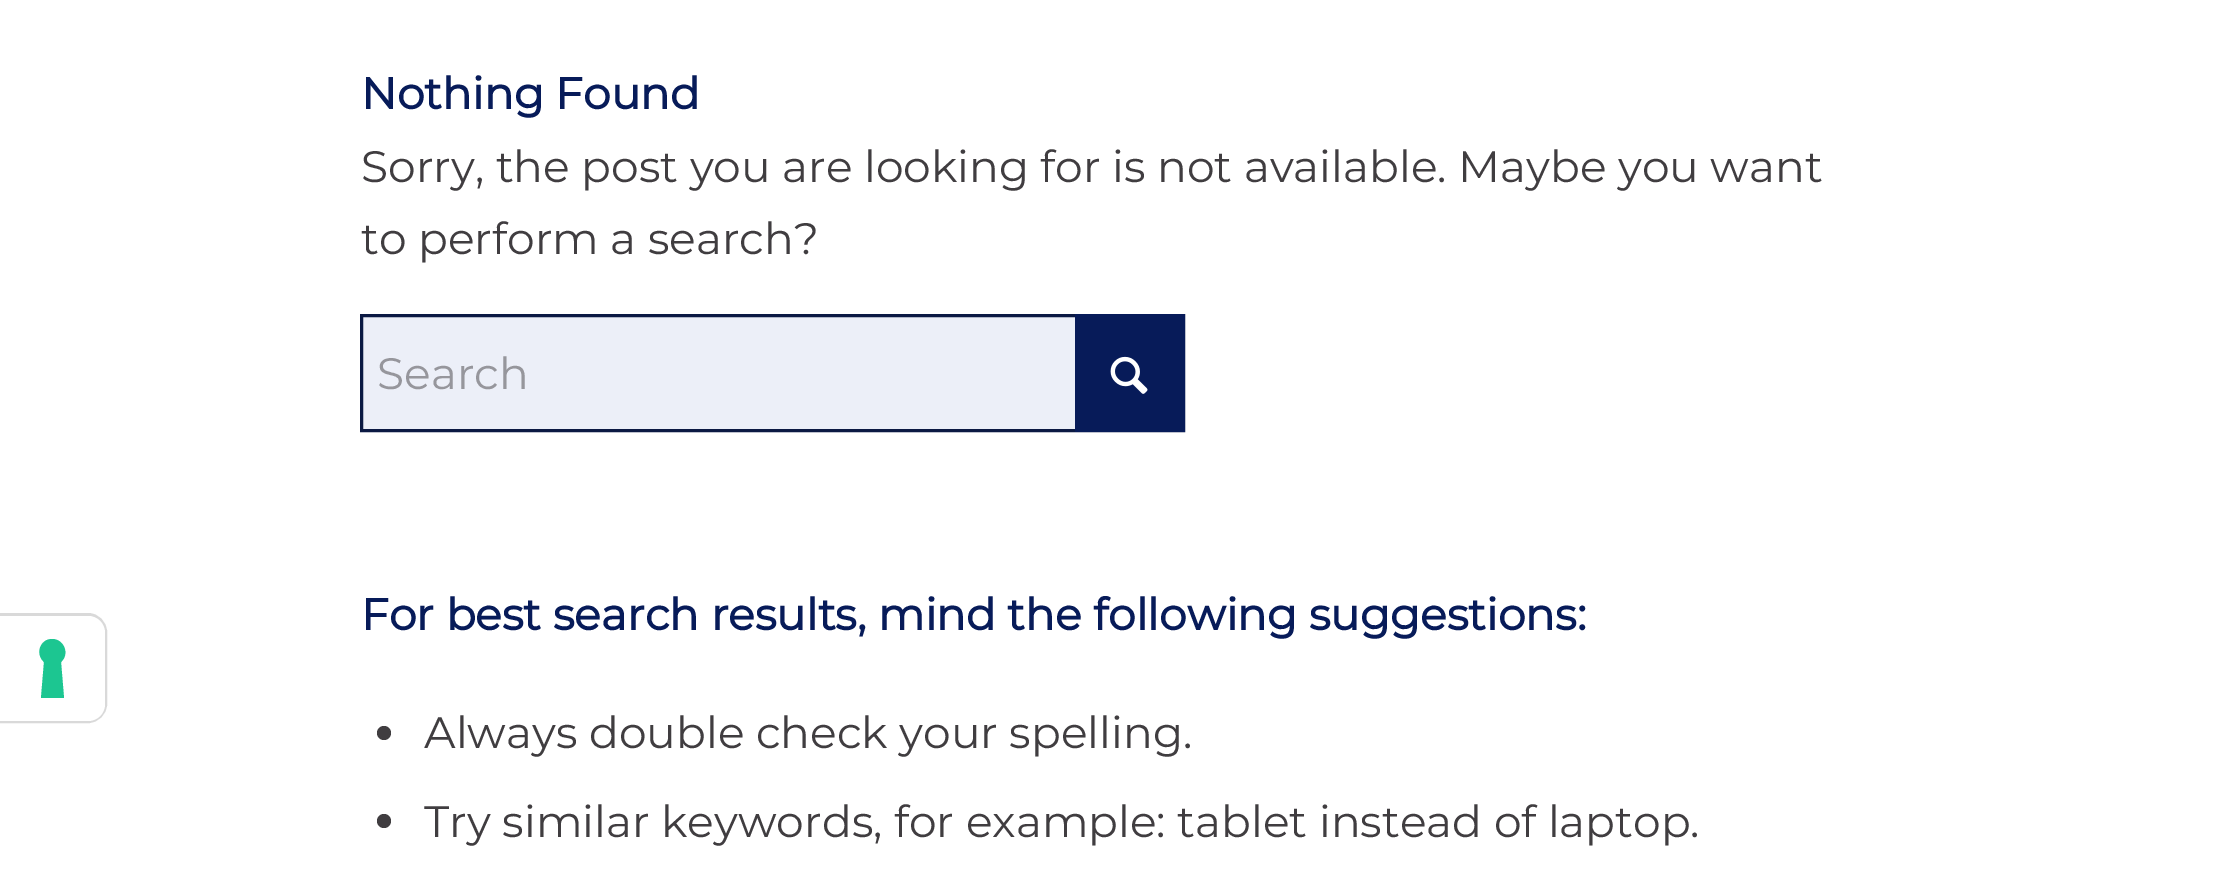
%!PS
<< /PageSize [2233 890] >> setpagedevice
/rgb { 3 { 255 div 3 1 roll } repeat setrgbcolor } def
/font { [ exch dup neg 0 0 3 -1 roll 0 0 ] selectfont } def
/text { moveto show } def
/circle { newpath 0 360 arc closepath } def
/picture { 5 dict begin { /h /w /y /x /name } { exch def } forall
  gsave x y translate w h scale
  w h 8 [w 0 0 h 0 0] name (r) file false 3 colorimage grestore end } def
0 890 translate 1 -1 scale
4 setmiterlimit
255 255 255 rgb
0 0 2233 890 rectfill
217 217 217 rgb
3 setlinewidth
-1.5 614.5 moveto 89.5 0 rlineto 9.5 0 17.5 8 17.5 17.5 rcurveto 0 72 rlineto 0 9.5 -8 17.5 -17.5 17.5 rcurveto -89.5 0 rlineto closepath stroke
255 255 255 rgb
0 616 moveto 88 0 rlineto 9.5 0 17 7.5 17 17 rcurveto 0 71 rlineto 0 9.5 -7.5 17 -17 17 rcurveto -88 0 rlineto closepath fill
28 198 145 rgb
52 639 moveto 12 0 18 15 9 23 rcurveto 3 36 rlineto -23 0 rlineto 3 -36 rlineto -9 -8 -4 -23 8 -23 rcurveto closepath eofill
236 239 248 rgb
363 317 712 112 rectfill
11 25 67 rgb
361.5 315.5 822 115 rectstroke
7 27 89 rgb
1075 314 110 118 rectfill
(img_01.rgb) 1110 356 38 38 picture
64 61 64 rgb
384 733 7 circle fill
384 821 7 circle fill
/Montserrat-Bold 44 font
7 27 89 rgb
(Nothing Found) 361 109 text
/Montserrat-Thin 44 font
64 61 64 rgb
(Sorry, the post you are looking for is not available. Maybe you want) 361 182 text
(to perform a search?) 361 254 text
150 150 156 rgb
(Search) 377 389 text
/Montserrat-Bold 44 font
7 27 89 rgb
(For best search results, mind the following suggestions:) 361 630 text
/Montserrat-Thin 44 font
64 61 64 rgb
(Always double check your spelling.) 424 748 text
(Try similar keywords, for example: tablet instead of laptop.) 424 837 text
showpage
